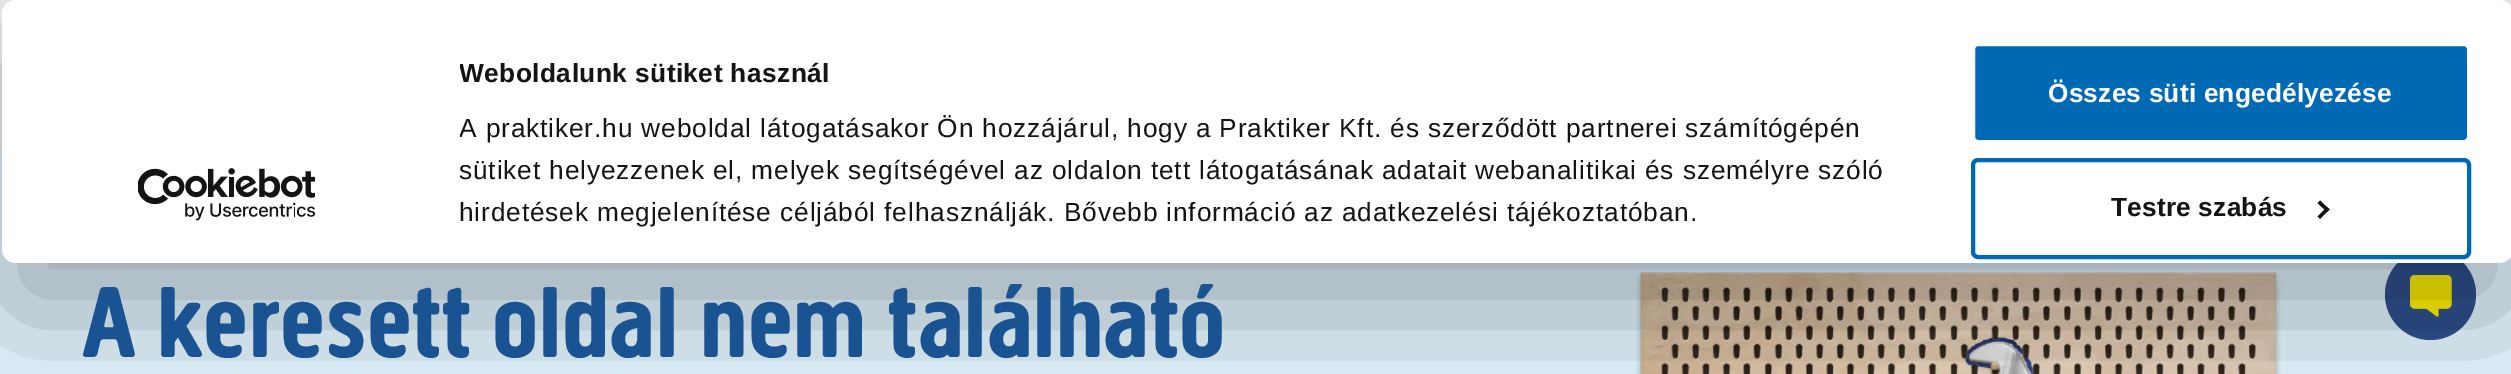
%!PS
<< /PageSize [2511 374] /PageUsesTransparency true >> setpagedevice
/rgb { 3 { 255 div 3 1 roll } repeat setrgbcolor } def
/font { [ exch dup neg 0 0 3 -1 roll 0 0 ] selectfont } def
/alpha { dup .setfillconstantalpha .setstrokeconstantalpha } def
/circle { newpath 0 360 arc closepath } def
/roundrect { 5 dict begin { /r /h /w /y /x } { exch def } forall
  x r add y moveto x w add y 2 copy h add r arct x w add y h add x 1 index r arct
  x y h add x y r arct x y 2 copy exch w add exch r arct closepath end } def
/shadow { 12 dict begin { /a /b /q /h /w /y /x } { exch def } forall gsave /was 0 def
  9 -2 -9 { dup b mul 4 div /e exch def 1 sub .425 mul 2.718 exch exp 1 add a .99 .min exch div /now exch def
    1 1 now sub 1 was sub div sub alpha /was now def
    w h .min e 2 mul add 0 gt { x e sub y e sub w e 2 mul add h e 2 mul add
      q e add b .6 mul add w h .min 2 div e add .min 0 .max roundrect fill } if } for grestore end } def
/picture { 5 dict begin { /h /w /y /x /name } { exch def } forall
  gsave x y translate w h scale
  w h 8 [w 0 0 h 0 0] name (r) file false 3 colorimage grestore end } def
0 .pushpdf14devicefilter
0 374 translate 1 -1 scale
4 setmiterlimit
225 244 253 rgb
0 0 2511 374 rectfill
0 0 0 rgb
0 2 2511 150 0 2.5 0.1 shadow
241 237 236 rgb
0 0 2511 151 rectfill
(img_02.rgb) 1636 271 645 103 picture
46 81 141 rgb
2430.5 294.5 45.5 circle fill
(img_03.rgb) 2410 275 42 42 picture
gsave
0 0 moveto 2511 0 rlineto 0 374 rlineto -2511 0 rlineto closepath 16 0 moveto 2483 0 rlineto 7.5 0 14 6.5 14 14 rcurveto 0 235 rlineto 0 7.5 -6.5 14 -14 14 rcurveto -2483 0 rlineto -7.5 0 -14 -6.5 -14 -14 rcurveto 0 -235 rlineto 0 -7.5 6.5 -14 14 -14 rcurveto closepath eoclip newpath
0 0 0 rgb
2 53 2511 262 14 61 0.3 shadow
grestore
255 255 255 rgb
2 0 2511 263 14 roundrect fill
(img_01.rgb) 138 168 177 53 picture
0 105 180 rgb
1973 44 496 98 5 roundrect gsave fill grestore
255 255 255 rgb
4 setlinewidth
stroke
0 105 180 rgb
1973 160 496 97 5 roundrect stroke
20 20 20 rgb
2320 200.5 moveto 9.5 9 rlineto -2.5 2.5 rlineto -9.5 -9 rlineto closepath fill
2327 207 moveto 2.5 2.5 rlineto -9.5 9.5 rlineto -2.5 -2.5 rlineto closepath fill
gsave
460 53 1500 180 rectclip
/LiberationSans-Bold 26.25 font
459 82 moveto 0.45 0 (Weboldalunk sütiket használ) ashow
/LiberationSans-Regular 26.25 font
459 137 moveto 0.88 0 (A praktiker.hu weboldal látogatásakor Ön hozzájárul, hogy a Praktiker Kft. és szerződött partnerei számítógépén) ashow
grestore
/LiberationSans-Regular 26.25 font
459 179 moveto 0.88 0 (sütiket helyezzenek el, melyek segítségével az oldalon tett látogatásának adatait webanalitikai és személyre szóló) ashow
459 221 moveto 0.88 0 (hirdetések megjelenítése céljából felhasználják. Bővebb információ az adatkezelési tájékoztatóban.) ashow
/LiberationSans-Bold 26.25 font
255 255 255 rgb
2048 102 moveto 0.2 0 (Összes süti engedélyezése) ashow
20 20 20 rgb
2111 216 moveto 0.2 0 (Testre szabás) ashow
/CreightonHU-Regular 105 font
25 83 146 rgb
84 357 moveto 2.6 0 (A keresett oldal nem található) ashow
.poppdf14devicefilter showpage
